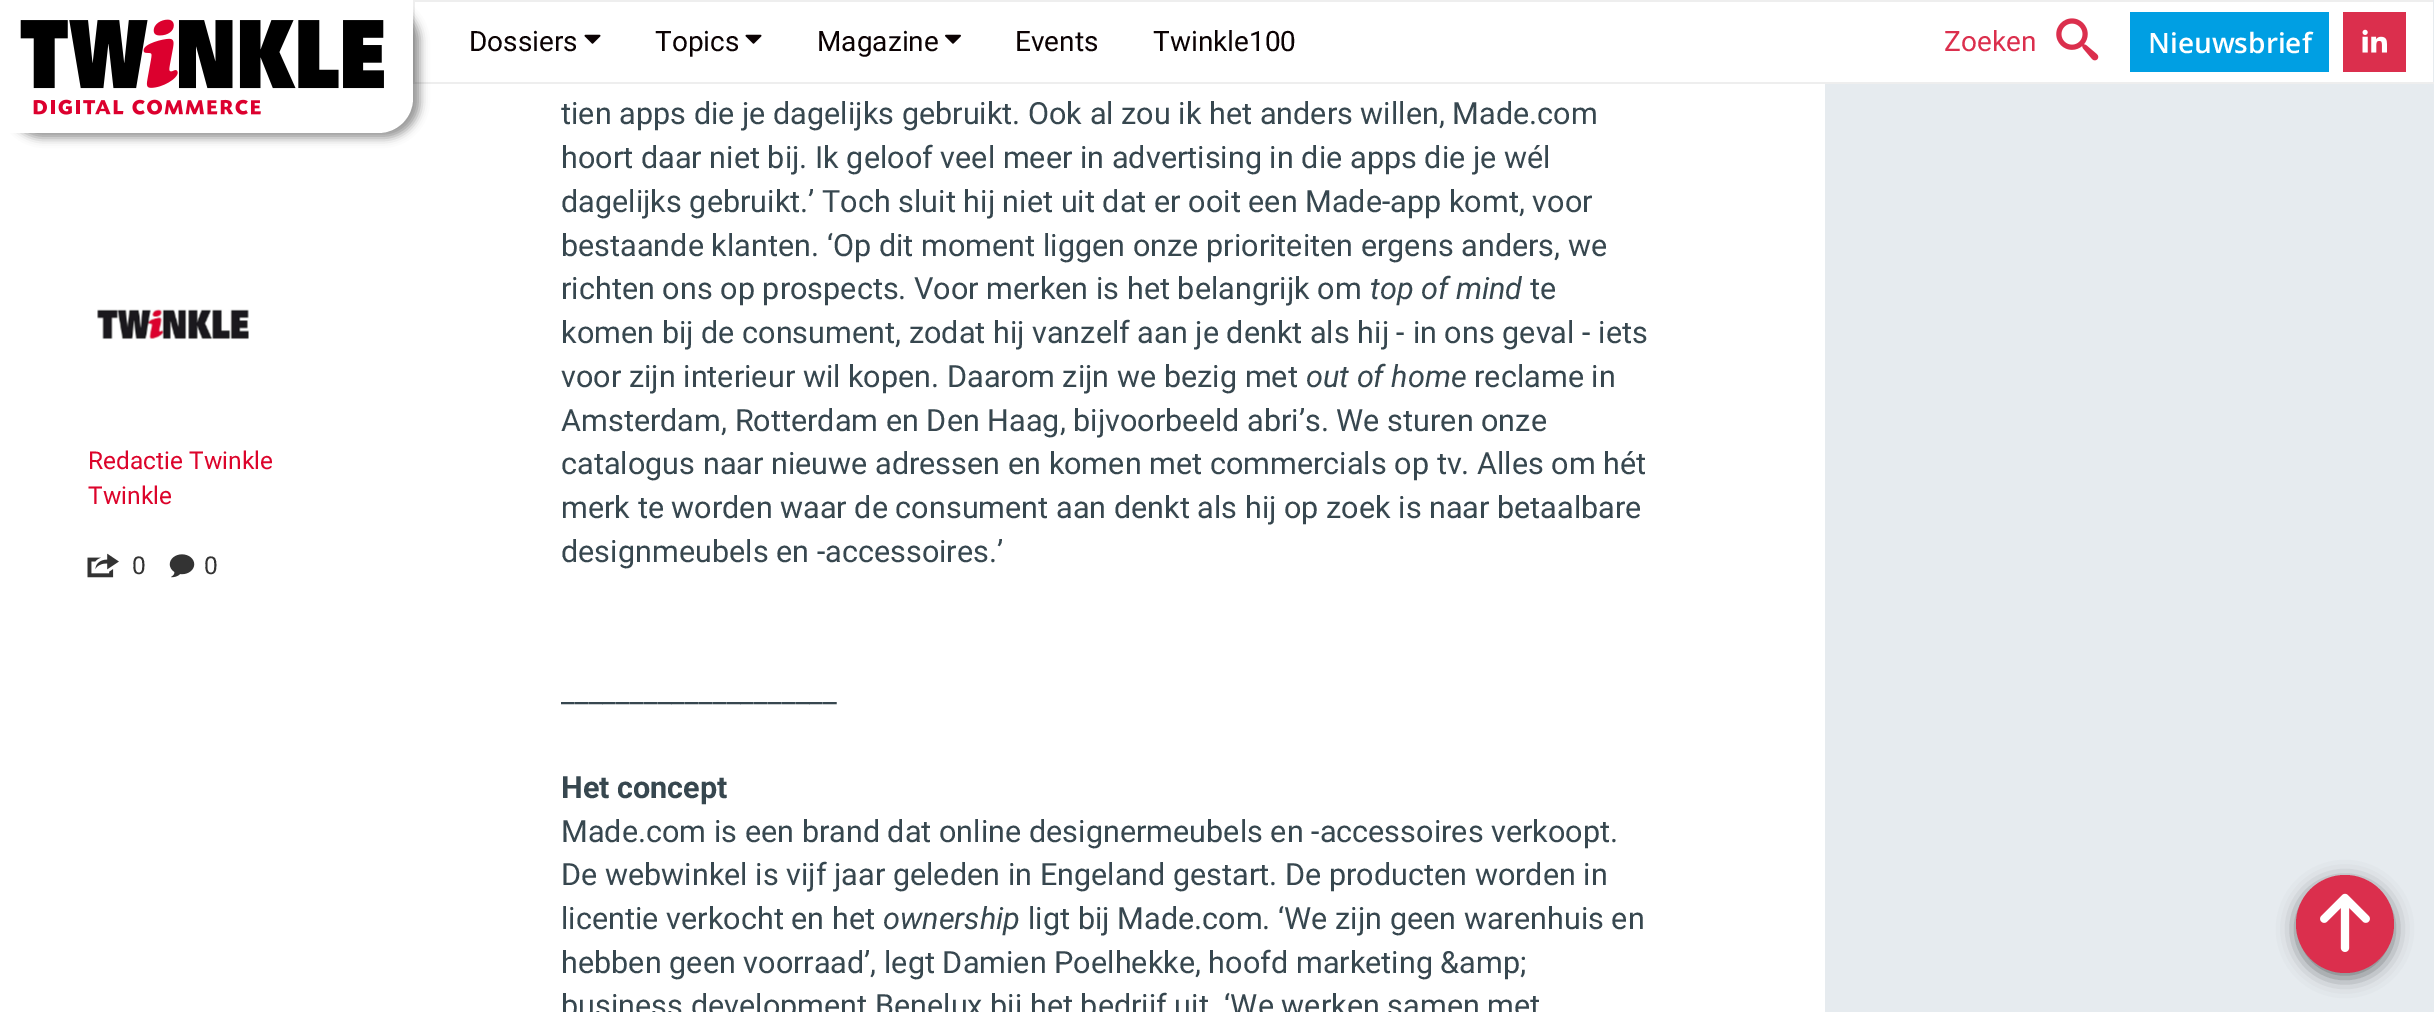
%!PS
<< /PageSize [2434 1012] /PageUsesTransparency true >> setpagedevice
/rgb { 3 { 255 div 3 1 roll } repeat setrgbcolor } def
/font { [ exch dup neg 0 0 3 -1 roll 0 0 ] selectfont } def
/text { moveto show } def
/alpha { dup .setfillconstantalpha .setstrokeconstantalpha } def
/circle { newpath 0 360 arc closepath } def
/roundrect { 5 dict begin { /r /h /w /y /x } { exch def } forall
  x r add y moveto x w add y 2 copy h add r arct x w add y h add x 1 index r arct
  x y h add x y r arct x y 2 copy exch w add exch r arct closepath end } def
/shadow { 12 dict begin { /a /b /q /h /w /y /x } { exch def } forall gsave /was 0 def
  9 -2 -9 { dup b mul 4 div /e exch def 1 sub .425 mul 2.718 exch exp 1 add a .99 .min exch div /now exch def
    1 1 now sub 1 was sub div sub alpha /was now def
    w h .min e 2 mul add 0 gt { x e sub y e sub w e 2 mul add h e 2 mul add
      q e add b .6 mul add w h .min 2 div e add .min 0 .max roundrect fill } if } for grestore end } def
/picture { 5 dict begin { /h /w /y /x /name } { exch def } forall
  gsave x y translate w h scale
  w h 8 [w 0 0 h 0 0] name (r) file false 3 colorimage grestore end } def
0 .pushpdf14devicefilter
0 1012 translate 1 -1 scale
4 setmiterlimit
255 255 255 rgb
0 0 2434 1012 rectfill
238 238 238 rgb
413 0 2021 2 rectfill
230 235 239 rgb
2433 0 1 84 rectfill
238 238 238 rgb
413 82 2021 2 rectfill
413 0 2 84 rectfill
0 0 0 rgb
7 5 413 133 35 4.5 0.4 shadow
255 255 255 rgb
0 0 moveto 413 0 rlineto 0 98 rlineto 0 19.5 -15.5 35 -35 35 rcurveto -378 0 rlineto closepath fill
(img_01.rgb) 20 19 364 96 picture
(img_02.rgb) 584 34 17 10 picture
(img_02.rgb) 745 34 17 10 picture
(img_03.rgb) 945 34 16 10 picture
(img_04.rgb) 2056 18 43 43 picture
0 159 227 rgb
2130 12 199 60 rectfill
219 47 77 rgb
2343 12 63 60 rectfill
(img_05.rgb) 2362 29 25 24 picture
(img_06.rgb) 97 309 152 31 picture
(img_07.rgb) 87 553 32 25 picture
(img_08.rgb) 169 554 26 24 picture
230 235 239 rgb
1825 84 609 928 rectfill
0 0 0 rgb
2296 880 98 98 49 9 0.5 shadow
219 47 77 rgb
2345 924 49 circle fill
(img_09.rgb) 2320 893 50 59 picture
/Roboto-Regular 28 font
11 2 3 rgb
(Dossiers) 469 51 text
(Topics) 655 51 text
(Magazine) 817 51 text
(Events) 1015 51 text
(Twinkle100) 1153 51 text
219 47 77 rgb
(Zoeken) 1944 51 text
/OpenSans-SemiBold 28 font
255 255 255 rgb
(Nieuwsbrief) 2148 53 text
/Roboto-Regular 24.5 font
220 4 43 rgb
(Redactie Twinkle) 88 469 text
(Twinkle) 88 504 text
51 51 51 rgb
(0) 132 574 text
(0) 204 574 text
/Roboto-Regular 30.6 font
55 71 79 rgb
(tien apps die je dagelijks gebruikt. Ook al zou ik het anders willen, Made.com) 561 124 text
(hoort daar niet bij. Ik geloof veel meer in advertising in die apps die je wél) 561 168 text
(dagelijks gebruikt.’ Toch sluit hij niet uit dat er ooit een Made-app komt, voor) 561 212 text
(bestaande klanten. ‘Op dit moment liggen onze prioriteiten ergens anders, we) 561 256 text
(richten ons op prospects. Voor merken is het belangrijk om) 561 299 text
/Roboto-Italic 30.6 font
(top of mind) 1370 299 text
/Roboto-Regular 30.6 font
(te) 1530 299 text
(komen bij de consument, zodat hij vanzelf aan je denkt als hij - in ons geval - iets) 561 343 text
(voor zijn interieur wil kopen. Daarom zijn we bezig met) 561 387 text
/Roboto-Italic 30.6 font
(out of home) 1306 387 text
/Roboto-Regular 30.6 font
(reclame in) 1474 387 text
(Amsterdam, Rotterdam en Den Haag, bijvoorbeeld abri’s. We sturen onze) 561 431 text
(catalogus naar nieuwe adressen en komen met commercials op tv. Alles om hét) 561 474 text
(merk te worden waar de consument aan denkt als hij op zoek is naar betaalbare) 561 518 text
(designmeubels en -accessoires.’) 561 562 text
(____________________) 561 702 text
/Roboto-Bold 30.6 font
(Het concept) 561 798 text
/Roboto-Regular 30.6 font
(Made.com is een brand dat online designermeubels en -accessoires verkoopt.) 561 842 text
(De webwinkel is vijf jaar geleden in Engeland gestart. De producten worden in) 561 885 text
(licentie verkocht en het) 561 929 text
/Roboto-Italic 30.6 font
(ownership) 883 929 text
/Roboto-Regular 30.6 font
(ligt bij Made.com. ‘We zijn geen warenhuis en) 1028 929 text
(hebben geen voorraad’, legt Damien Poelhekke, hoofd marketing &amp;) 561 973 text
(business development Benelux bij het bedrijf uit. ‘We werken samen met) 561 1016 text
.poppdf14devicefilter showpage
